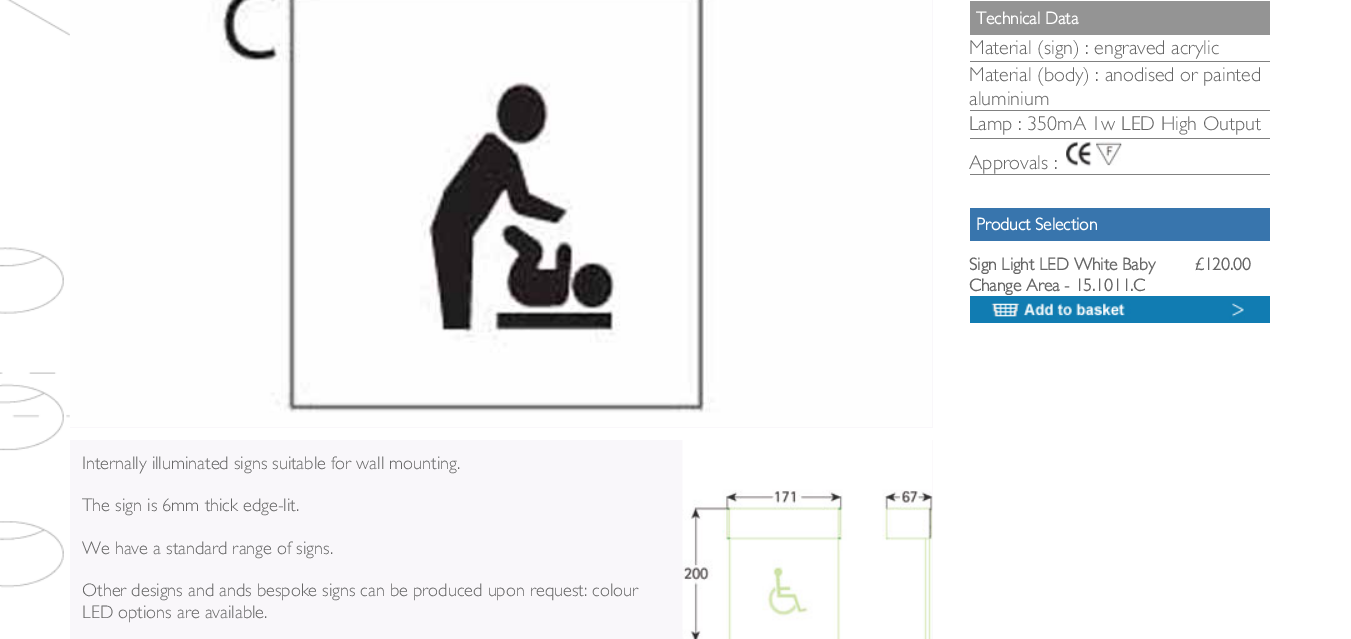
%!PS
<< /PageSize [1351 639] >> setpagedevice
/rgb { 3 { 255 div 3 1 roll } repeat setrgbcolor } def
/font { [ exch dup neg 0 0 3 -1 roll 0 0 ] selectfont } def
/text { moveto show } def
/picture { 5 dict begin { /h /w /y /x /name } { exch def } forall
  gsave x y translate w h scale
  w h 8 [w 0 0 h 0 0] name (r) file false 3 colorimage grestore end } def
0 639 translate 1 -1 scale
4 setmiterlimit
255 255 255 rgb
0 0 1351 639 rectfill
(img_01.rgb) 0 0 70 588 picture
148 148 148 rgb
970 1 300 34 rectfill
128 128 128 rgb
970 61 300 1 rectfill
970 110 300 1 rectfill
970 138 300 1 rectfill
970 174 300 1 rectfill
(img_02.rgb) 1066 141 26 26 picture
(img_03.rgb) 1096 141 26 25 picture
56 117 173 rgb
970 208 300 33 rectfill
17 124 178 rgb
970 296 300 27 rectfill
(img_04.rgb) 990 302 255 18 picture
249 247 250 rgb
70 0 863 639 rectfill
(img_05.rgb) 70 0 862 427 picture
255 255 255 rgb
70 428 863 12 rectfill
(img_06.rgb) 682 440 251 199 picture
/GillSans-Bold 17.5 font
(Technical Data) 976 24 text
/GillSans-Light 20 font
102 102 102 rgb
(Material \(sign\) : engraved acrylic) 969 54 text
(Material \(body\) : anodised or painted) 969 81 text
(aluminium) 969 105 text
(Lamp : 350mA 1w LED High Output) 969 130 text
(Approvals :) 969 169 text
/GillSans-Bold 17.5 font
255 255 255 rgb
(Product Selection) 976 230 text
102 102 102 rgb
(Sign Light LED White Baby) 969 270 text
(Change Area - 15.1011.C) 969 291 text
(£120.00) 1194 270 text
/GillSans-Light 18.3 font
(Internally illuminated signs suitable for wall mounting.) 82 469 text
(The sign is 6mm thick edge-lit.) 82 511 text
(We have a standard range of signs.) 82 554 text
(Other designs and ands bespoke signs can be produced upon request: colour) 82 596 text
(LED options are available.) 82 618 text
showpage
